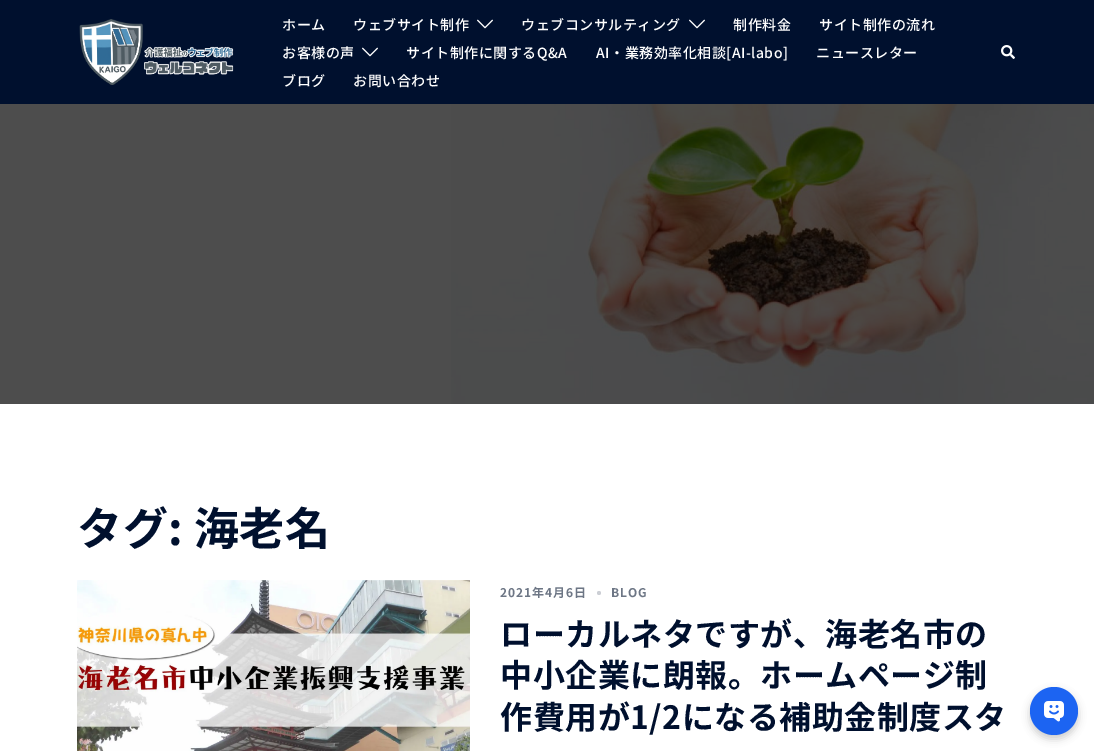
%!PS
<< /PageSize [1094 751] /PageUsesTransparency true >> setpagedevice
/rgb { 3 { 255 div 3 1 roll } repeat setrgbcolor } def
/font { [ exch dup neg 0 0 3 -1 roll 0 0 ] selectfont } def
/alpha { dup .setfillconstantalpha .setstrokeconstantalpha } def
/circle { newpath 0 360 arc closepath } def
/roundrect { 5 dict begin { /r /h /w /y /x } { exch def } forall
  x r add y moveto x w add y 2 copy h add r arct x w add y h add x 1 index r arct
  x y h add x y r arct x y 2 copy exch w add exch r arct closepath end } def
/shadow { 12 dict begin { /a /b /q /h /w /y /x } { exch def } forall gsave /was 0 def
  9 -2 -9 { dup b mul 4 div /e exch def 1 sub .425 mul 2.718 exch exp 1 add a .99 .min exch div /now exch def
    1 1 now sub 1 was sub div sub alpha /was now def
    w h .min e 2 mul add 0 gt { x e sub y e sub w e 2 mul add h e 2 mul add
      q e add b .6 mul add w h .min 2 div e add .min 0 .max roundrect fill } if } for grestore end } def
/picture { 5 dict begin { /h /w /y /x /name } { exch def } forall
  gsave x y translate w h scale
  w h 8 [w 0 0 h 0 0] name (r) file false 3 colorimage grestore end } def
0 .pushpdf14devicefilter
0 751 translate 1 -1 scale
4 setmiterlimit
255 255 255 rgb
0 0 1094 751 rectfill
77 77 77 rgb
0 104 451 300 rectfill
0 16 46 rgb
0 0 1094 104 rectfill
(img_01.rgb) 79 19 155 66 picture
(img_02.rgb) 477 19 16 10 picture
(img_02.rgb) 689 19 16 10 picture
(img_02.rgb) 362 47 16 10 picture
(img_03.rgb) 1001 45 14 14 picture
(img_04.rgb) 451 104 643 300 picture
(img_05.rgb) 77 580 393 171 picture
204 207 213 rgb
599 593 2 circle fill
0 0 0 rgb
1030 691 48 48 24 4 0.2 shadow
28 100 242 rgb
1054 711 24 circle fill
(img_06.rgb) 1044 701 20 21 picture
/NotoSansJP-Medium 14 font
255 255 255 rgb
282 30 moveto 0.5 0 (ホーム) ashow
353 30 moveto 0.5 0 (ウェブサイト制作) ashow
521 30 moveto 0.5 0 (ウェブコンサルティング) ashow
733 30 moveto 0.5 0 (制作料金) ashow
819 30 moveto 0.5 0 (サイト制作の流れ) ashow
282 58 moveto 0.5 0 (お客様の声) ashow
406 58 moveto 0.5 0 (サイト制作に関するQ&A) ashow
596 58 moveto 0.5 0 (AI・業務効率化相談[AI-labo]) ashow
816 58 moveto 0.5 0 (ニュースレター) ashow
282 86 moveto 0.5 0 (ブログ) ashow
353 86 moveto 0.5 0 (お問い合わせ) ashow
/NotoSansJP-Bold 45 font
0 16 46 rgb
77 545 moveto 0.5 0 (タグ: 海老名) ashow
/NotoSansJP-Bold 12 font
109 118 133 rgb
500 597 moveto 1 0 (2021年4月6日) ashow
611 597 moveto 1 0 (BLOG) ashow
/NotoSansJP-Bold 32 font
0 16 46 rgb
500 646 moveto 0.5 0 (ローカルネタですが、海老名市の) ashow
500 687 moveto 0.5 0 (中小企業に朗報。ホームページ制) ashow
500 729 moveto 0.5 0 (作費用が1/2になる補助金制度スタ) ashow
.poppdf14devicefilter showpage
